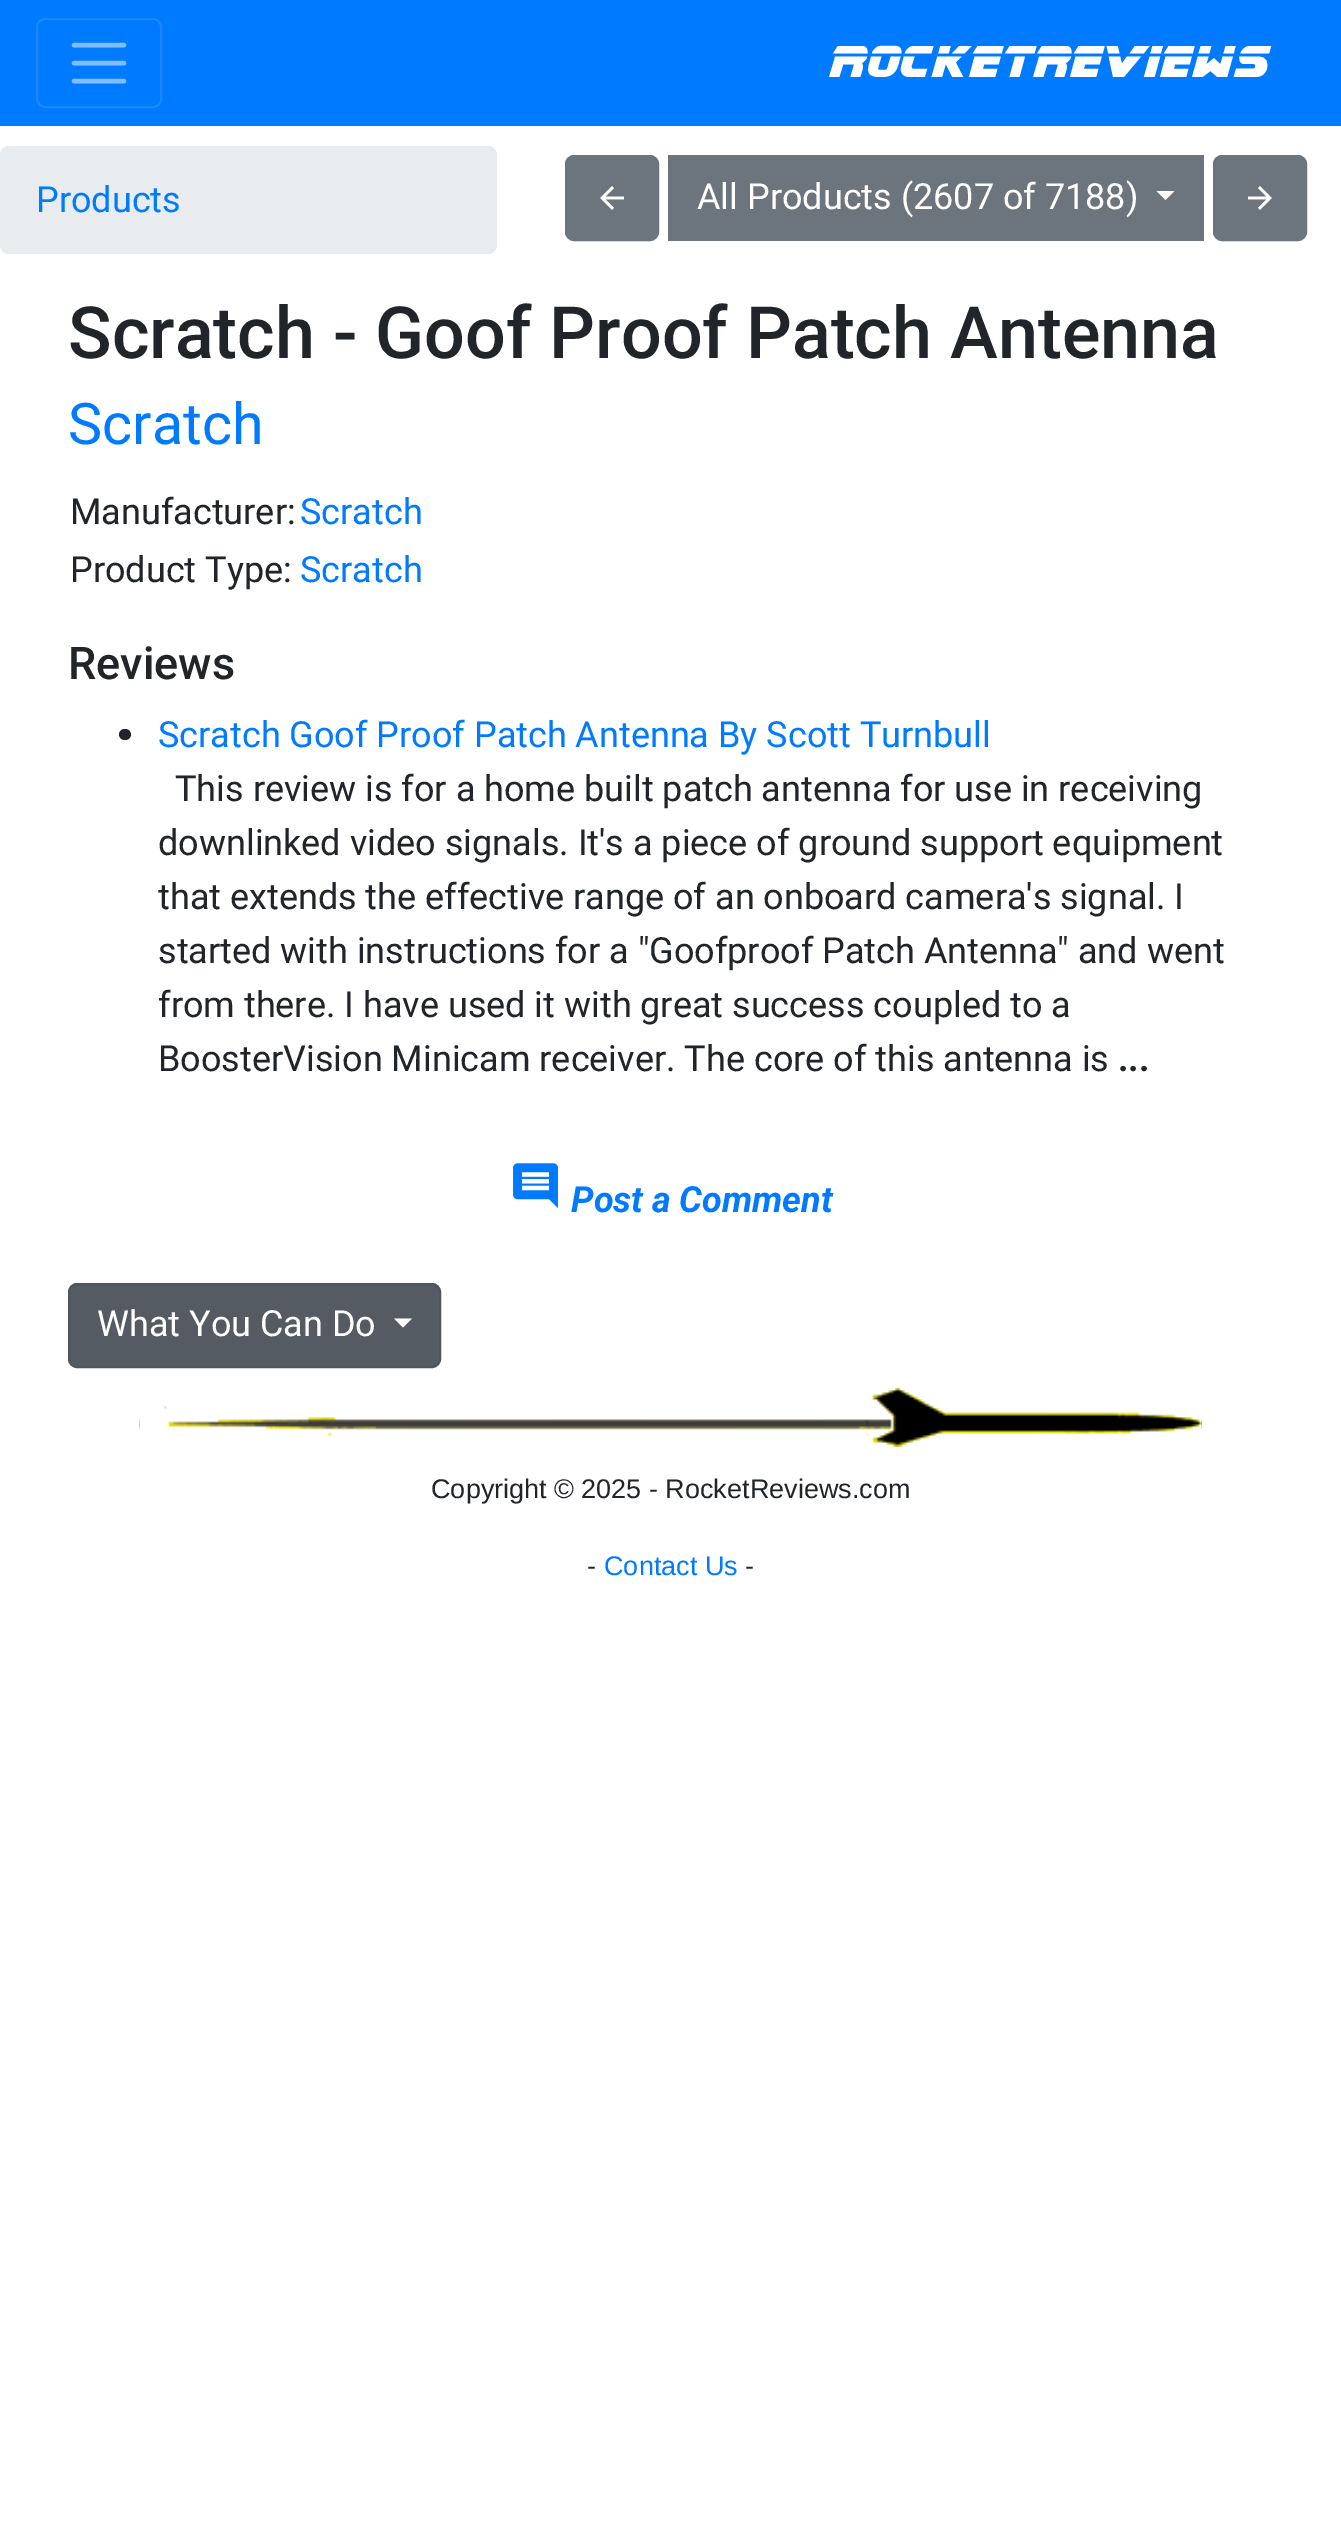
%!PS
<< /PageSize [1341 2545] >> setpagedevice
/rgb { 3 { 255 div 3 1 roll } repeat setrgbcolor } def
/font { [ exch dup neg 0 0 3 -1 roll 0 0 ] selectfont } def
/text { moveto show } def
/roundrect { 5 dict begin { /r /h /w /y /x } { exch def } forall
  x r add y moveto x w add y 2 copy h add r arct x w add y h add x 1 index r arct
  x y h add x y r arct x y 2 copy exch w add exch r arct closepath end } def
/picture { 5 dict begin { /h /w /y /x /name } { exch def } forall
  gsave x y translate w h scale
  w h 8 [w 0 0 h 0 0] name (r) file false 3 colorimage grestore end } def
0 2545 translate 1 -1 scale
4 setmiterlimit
255 255 255 rgb
0 0 1341 2545 rectfill
0 123 255 rgb
0 0 1341 126 rectfill
26 136 255 rgb
2 setlinewidth
37 19 124 88 8 roundrect stroke
128 189 255 rgb
4.5 setlinewidth
1 setlinecap
74 45 moveto 50 0 rlineto 74 63 moveto 50 0 rlineto 74 81 moveto 50 0 rlineto stroke
233 236 239 rgb
0 146 497 108 9 roundrect fill
108 117 125 rgb
566 156 92 84 8 roundrect gsave fill grestore
2 setlinewidth
0 setlinecap
stroke
(img_01.rgb) 600 186 24 24 picture
668 155 536 86 rectfill
255 255 255 rgb
1156.5 191 moveto 18 0 rlineto -9 9 rlineto closepath fill
108 117 125 rgb
1214 156 92 84 8 roundrect gsave fill grestore
stroke
(img_02.rgb) 1248 186 24 24 picture
33 37 41 rgb
119 729 12 11 5.5 roundrect fill
(img_03.rgb) 513 1163 45 46 picture
84 91 98 rgb
69 1284 371 83 8 roundrect gsave fill grestore
78 85 91 rgb
stroke
255 255 255 rgb
394 1318.5 moveto 18 0 rlineto -9 9 rlineto closepath fill
(img_04.rgb) 139 1419 1063 11 picture
(img_05.rgb) 139 1405 237 32 picture
(img_06.rgb) 859 1387 343 60 picture
/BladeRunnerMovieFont-BoldItalic 45 font
(RocketReviews) 830 77 text
/Roboto-Regular 36 font
0 123 255 rgb
(Products) 36 212 text
255 255 255 rgb
(All Products \(2607 of 7188\)) 697 209 text
/Roboto-Medium 72 font
33 37 41 rgb
(Scratch - Goof Proof Patch Antenna) 68 358 text
/Roboto-Regular 57.5 font
0 123 255 rgb
(Scratch) 68 444 text
/Roboto-Regular 36 font
33 37 41 rgb
(Manufacturer:) 70 524 text
0 123 255 rgb
(Scratch) 300 524 text
33 37 41 rgb
(Product Type:) 70 582 text
0 123 255 rgb
(Scratch) 300 582 text
/Roboto-Medium 45 font
33 37 41 rgb
(Reviews) 68 679 text
/Roboto-Regular 36 font
0 123 255 rgb
(Scratch Goof Proof Patch Antenna By Scott Turnbull) 158 747 text
33 37 41 rgb
(This review is for a home built patch antenna for use in receiving) 175 801 text
(downlinked video signals. It's a piece of ground support equipment) 158 855 text
(that extends the effective range of an onboard camera's signal. I) 158 909 text
(started with instructions for a "Goofproof Patch Antenna" and went) 158 963 text
(from there. I have used it with great success coupled to a) 158 1017 text
(BoosterVision Minicam receiver. The core of this antenna is) 158 1071 text
/Roboto-Bold 36 font
(...) 1118 1071 text
/Roboto-BoldItalic 36 font
0 123 255 rgb
(Post a Comment) 571 1212 text
/Roboto-Regular 36 font
255 255 255 rgb
(What You Can Do) 97 1336 text
/LiberationSans-Regular 27 font
33 37 41 rgb
(Copyright © 2025 - RocketReviews.com) 431 1498 text
(-) 587 1575 text
0 123 255 rgb
(Contact Us) 604 1575 text
33 37 41 rgb
(-) 745 1575 text
showpage
